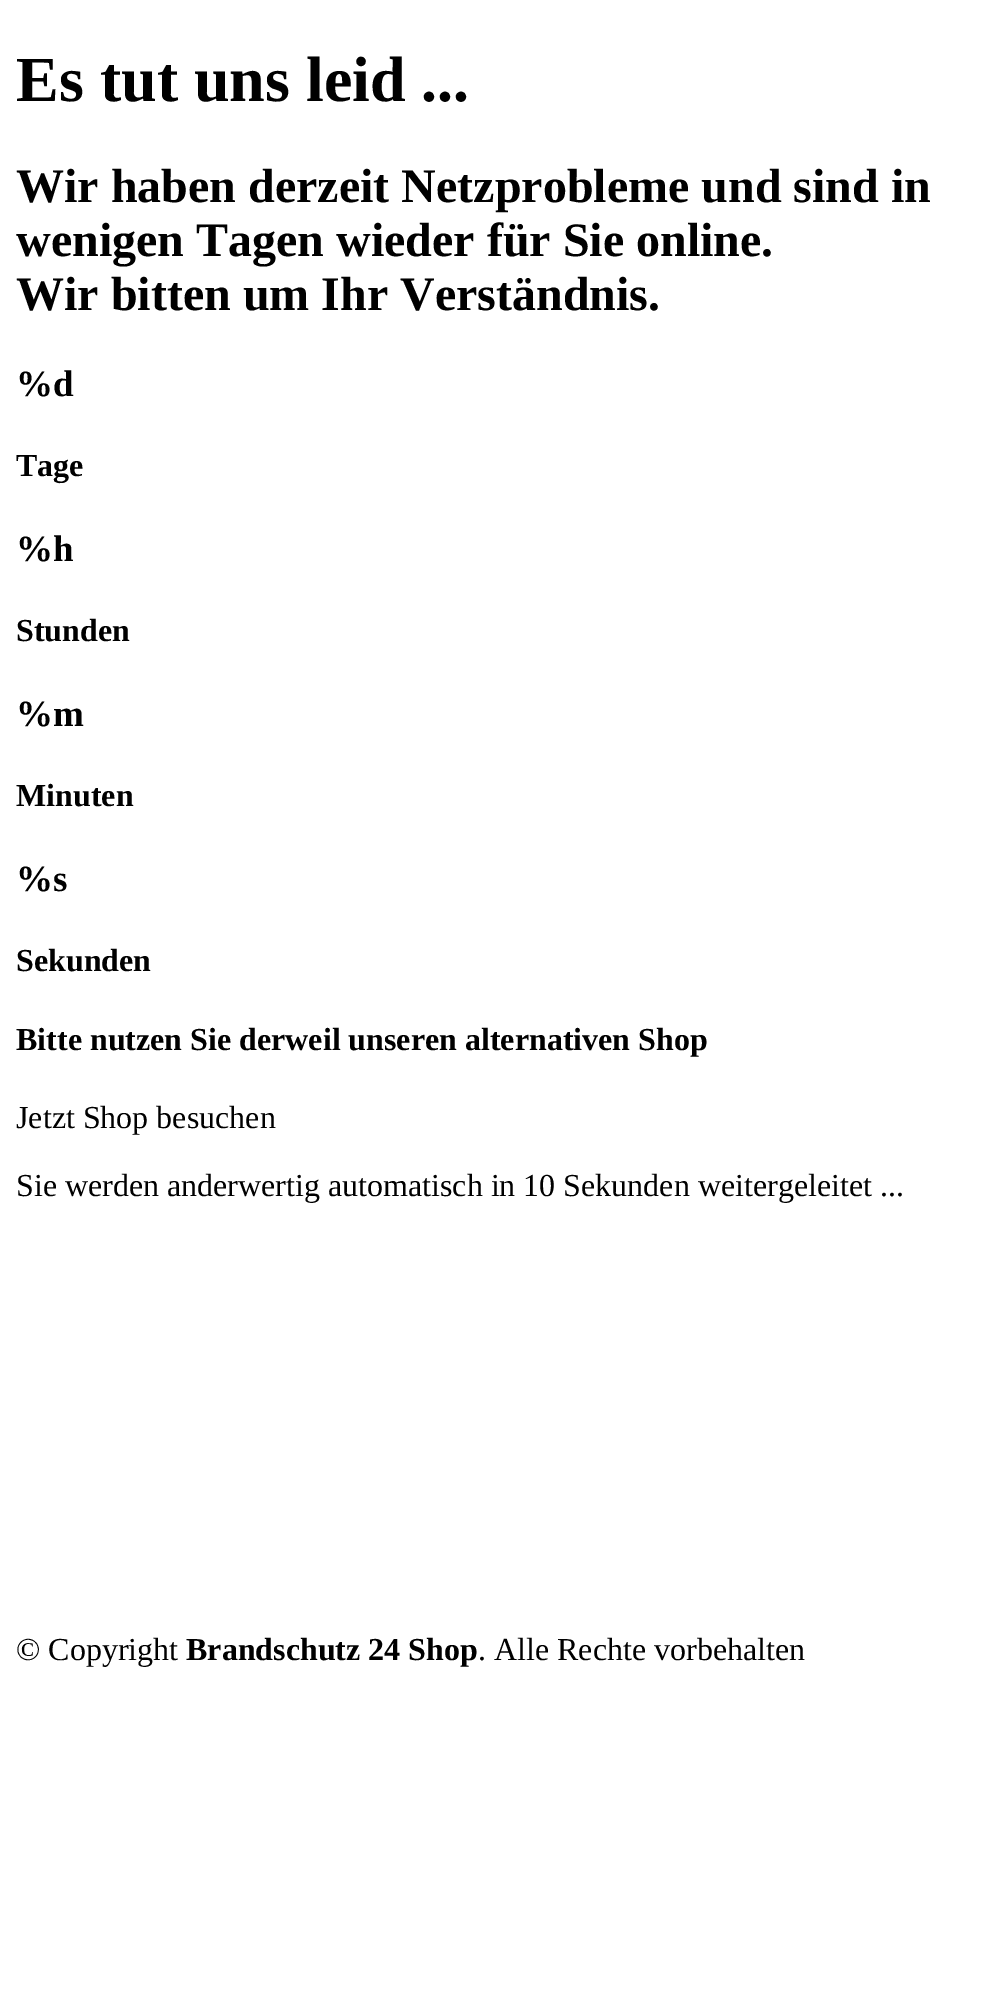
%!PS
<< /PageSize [983 1995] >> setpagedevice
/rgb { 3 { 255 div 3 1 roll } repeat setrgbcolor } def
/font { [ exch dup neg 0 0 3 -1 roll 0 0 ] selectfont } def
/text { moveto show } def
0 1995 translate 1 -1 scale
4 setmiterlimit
255 255 255 rgb
0 0 983 1995 rectfill
/LiberationSerif-Bold 64 font
0 0 0 rgb
(Es tut uns leid ...) 16 101 text
/LiberationSerif-Bold 48 font
(Wir haben derzeit Netzprobleme und sind in) 16 202 text
(wenigen Tagen wieder für Sie online.) 16 256 text
(Wir bitten um Ihr Verständnis.) 16 310 text
/LiberationSerif-Bold 37 font
(%d) 16 396 text
/LiberationSerif-Bold 32 font
(Tage) 16 476 text
/LiberationSerif-Bold 37 font
(%h) 16 561 text
/LiberationSerif-Bold 32 font
(Stunden) 16 641 text
/LiberationSerif-Bold 37 font
(%m) 16 726 text
/LiberationSerif-Bold 32 font
(Minuten) 16 806 text
/LiberationSerif-Bold 37 font
(%s) 16 891 text
/LiberationSerif-Bold 32 font
(Sekunden) 16 971 text
(Bitte nutzen Sie derweil unseren alternativen Shop) 16 1050 text
/LiberationSerif-Regular 32 font
(Jetzt Shop besuchen) 16 1128 text
(Sie werden anderwertig automatisch in 10 Sekunden weitergeleitet ...) 16 1196 text
(© Copyright) 16 1660 text
/LiberationSerif-Bold 32 font
(Brandschutz 24 Shop) 186 1660 text
/LiberationSerif-Regular 32 font
(. Alle Rechte vorbehalten) 478 1660 text
showpage
